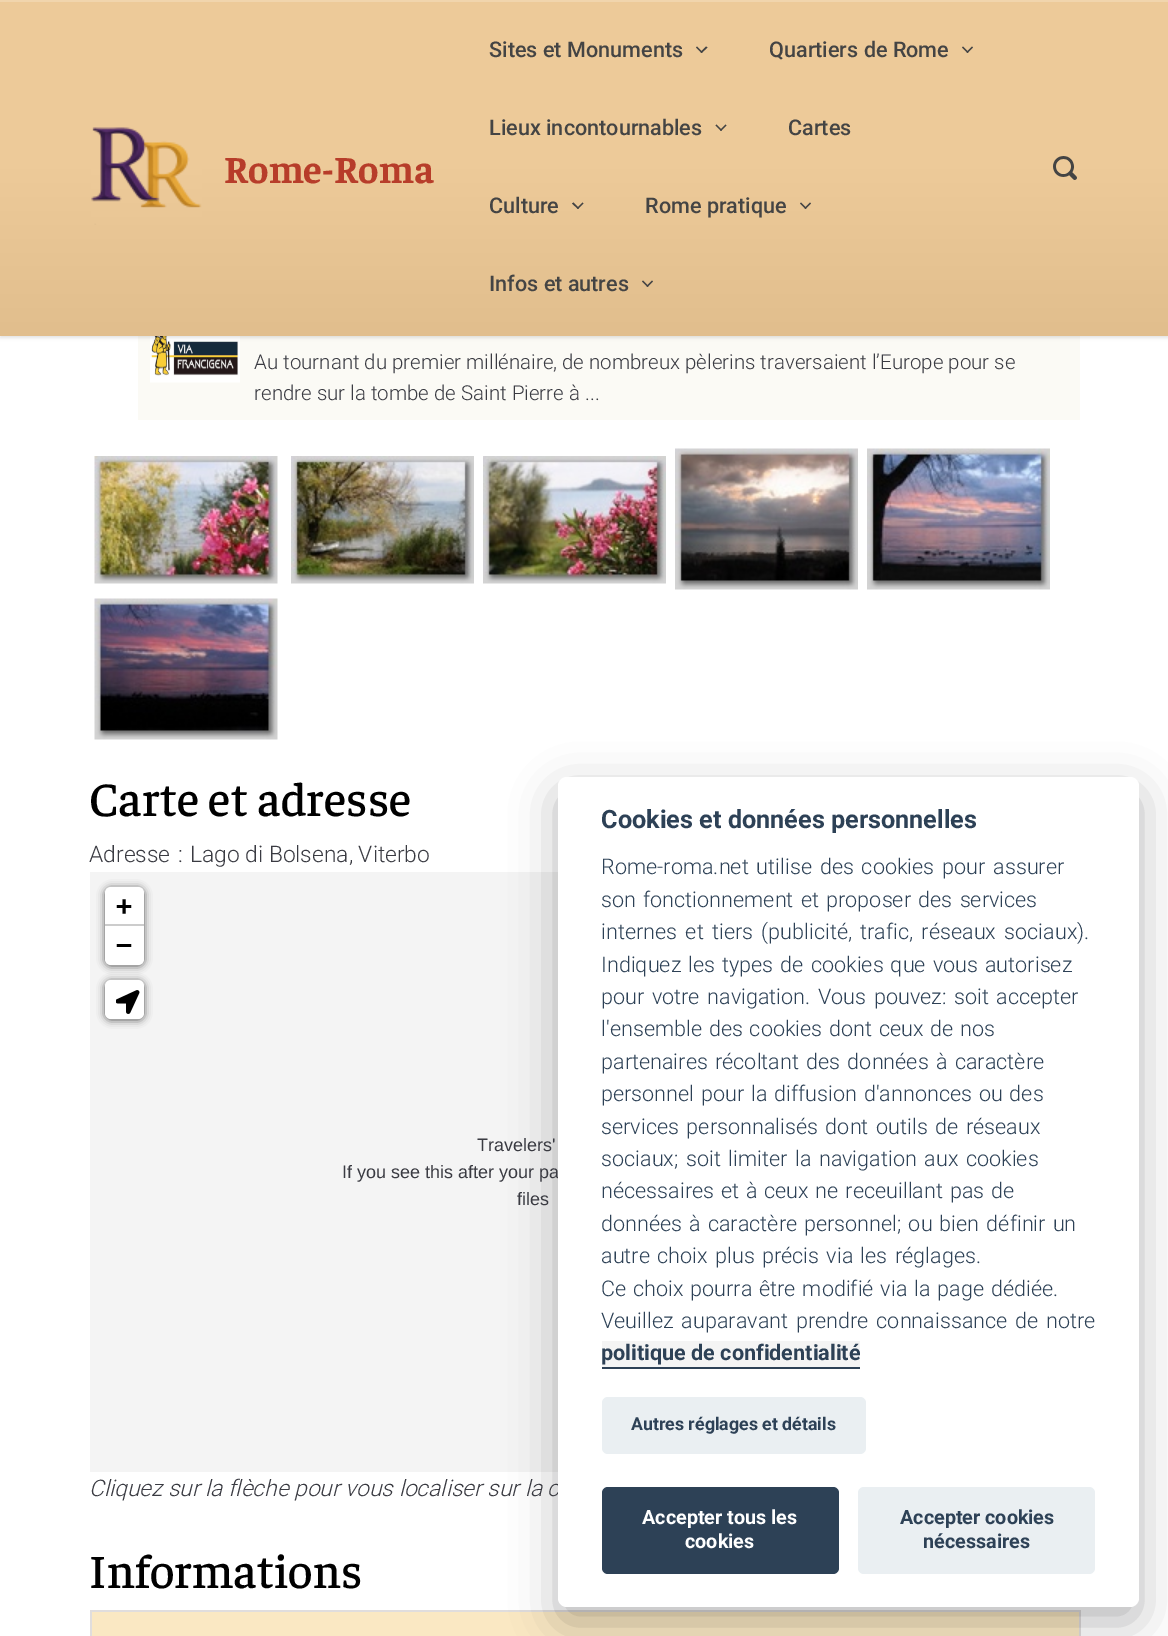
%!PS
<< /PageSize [1168 1636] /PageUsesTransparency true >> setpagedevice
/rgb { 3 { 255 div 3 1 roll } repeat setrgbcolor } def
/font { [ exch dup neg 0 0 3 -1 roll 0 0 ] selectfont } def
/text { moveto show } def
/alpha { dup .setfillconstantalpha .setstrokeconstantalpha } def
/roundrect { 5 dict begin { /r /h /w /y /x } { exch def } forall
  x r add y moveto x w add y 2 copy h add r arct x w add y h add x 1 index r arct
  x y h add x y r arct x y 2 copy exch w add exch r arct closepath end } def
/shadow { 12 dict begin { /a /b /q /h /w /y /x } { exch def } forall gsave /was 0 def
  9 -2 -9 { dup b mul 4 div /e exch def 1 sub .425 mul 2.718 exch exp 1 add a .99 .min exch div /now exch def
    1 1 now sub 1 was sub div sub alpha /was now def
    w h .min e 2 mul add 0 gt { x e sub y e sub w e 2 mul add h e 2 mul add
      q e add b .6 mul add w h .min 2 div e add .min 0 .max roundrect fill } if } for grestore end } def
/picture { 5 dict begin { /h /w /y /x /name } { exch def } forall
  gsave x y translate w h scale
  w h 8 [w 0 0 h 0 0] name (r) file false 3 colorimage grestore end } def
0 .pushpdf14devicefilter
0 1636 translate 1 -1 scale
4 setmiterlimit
255 255 255 rgb
0 0 1168 1636 rectfill
251 250 245 rgb
138 336 942 84 rectfill
(img_03.rgb) 150 336 90 47 picture
0 0 0 rgb
0 2 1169 336 0 1.5 0.1 shadow
gsave 0 2 moveto 1168 0 rlineto 0 334 rlineto -1168 0 rlineto closepath clip newpath
<< /ShadingType 2 /ColorSpace /DeviceRGB /Coords [584 0 584 336] /Extend [true true] /Function << /FunctionType 3 /Domain [0 1] /Functions [<< /FunctionType 2 /Domain [0 1] /C0 [0.929 0.792 0.6] /C1 [0.929 0.792 0.6] /N 1 >> << /FunctionType 2 /Domain [0 1] /C0 [0.929 0.792 0.6] /C1 [0.882 0.745 0.553] /N 1 >>] /Bounds [0.5] /Encode [0 1 0 1] >> >> shfill grestore
241 213 173 rgb
0 0 1168 2 rectfill
(img_01.rgb) 91 127 111 98 picture
68 68 68 rgb
706 46.5 moveto 1.5 1 rlineto -6 5.5 rlineto -1 -1 rlineto closepath fill
697 46.5 moveto 5.5 5.5 rlineto -1 1 rlineto -5.5 -5.5 rlineto closepath fill
972 46.5 moveto 1 1 rlineto -5.5 5.5 rlineto -1 -1 rlineto closepath fill
963 46.5 moveto 5.5 5.5 rlineto -1 1 rlineto -5.5 -5.5 rlineto closepath fill
725.5 124.5 moveto 1 1 rlineto -5.5 5.5 rlineto -1 -1 rlineto closepath fill
716.5 124.5 moveto 5.5 5.5 rlineto -1 1 rlineto -5.5 -5.5 rlineto closepath fill
582.5 202.5 moveto 1 1 rlineto -5.5 5.5 rlineto -1 -1 rlineto closepath fill
573.5 202.5 moveto 5.5 5.5 rlineto -1 1 rlineto -6 -5.5 rlineto closepath fill
810 202.5 moveto 1 1 rlineto -5.5 5.5 rlineto -1 -1 rlineto closepath fill
801 202.5 moveto 5.5 5.5 rlineto -1 1 rlineto -5.5 -5.5 rlineto closepath fill
652 280.5 moveto 1 1 rlineto -5.5 5.5 rlineto -1 -1 rlineto closepath fill
643 280.5 moveto 5.5 5.5 rlineto -1 1 rlineto -5.5 -5.5 rlineto closepath fill
(img_02.rgb) 1053 156 24 24 picture
(img_04.rgb) 94 456 184 128 picture
(img_05.rgb) 291 456 183 128 picture
(img_06.rgb) 483 456 183 128 picture
(img_07.rgb) 675 448 183 142 picture
(img_08.rgb) 867 448 183 142 picture
(img_09.rgb) 94 598 184 142 picture
244 244 244 rgb
90 872 468 600 rectfill
0 0 0 rgb
105 888 39 78 6 4 0.65 shadow
255 255 255 rgb
111 887 moveto 27 0 rlineto 3.5 0 6 2.5 6 6 rcurveto 0 33 rlineto -39 0 rlineto 0 -33 rlineto 0 -3.5 2.5 -6 6 -6 rcurveto closepath fill
204 204 204 rgb
105 924 39 2 rectfill
255 255 255 rgb
105 926 moveto 39 0 rlineto 0 33 rlineto 0 3.5 -2.5 6 -6 6 rcurveto -27 0 rlineto -3.5 0 -6 -2.5 -6 -6 rcurveto closepath fill
0 0 0 rgb
105 981 39 39 6 4 0.65 shadow
255 255 255 rgb
105 980 39 39 6 roundrect fill
(img_10.rgb) 116 990 24 24 picture
224 221 221 rgb
90 1610 990 2 rectfill
1079 1610 2 26 rectfill
90 1610 2 26 rectfill
250 232 195 rgb
92 1612 987 24 rectfill
2 2 3 rgb
558 792 581 830 9 22.5 0.28 shadow
/Faustina-Bold 38.5 font
183 61 42 rgb
(Rome-Roma) 224 183 text
/Roboto-Medium 21.6 font
68 68 68 rgb
(Sites et Monuments) 489 57 text
(Quartiers de Rome) 769 57 text
(Lieux incontournables) 489 135 text
(Cartes) 788 135 text
(Culture) 489 213 text
(Rome pratique) 645 213 text
(Infos et autres) 489 291 text
/Roboto-Light 20.5 font
58 59 66 rgb
(Au tournant du premier millénaire, de nombreux pèlerins traversaient l’Europe pour se) 254 369 text
(rendre sur la tombe de Saint Pierre à ...) 254 400 text
/Faustina-Medium 48 font
0 0 0 rgb
(Carte et adresse) 89 816 text
/Roboto-Light 22.8 font
58 59 66 rgb
89 862 moveto 2 0 32 (Adresse :) widthshow
(Lago di Bolsena, Viterbo) 190 862 text
/DejaVuSansMono-Bold 27 font
0 0 0 rgb
(+) 116 915 text
(−) 116 954 text
/LiberationSans-Regular 18 font
58 59 66 rgb
(Travelers') 477 1151 text
(If you see this after your pa) 342 1178 text
(files) 517 1205 text
/Roboto-LightItalic 22.8 font
(Cliquez sur la flèche pour vous localiser sur la c) 89 1496 text
/Faustina-Medium 48 font
0 0 0 rgb
(Informations) 89 1588 text
255 255 255 rgb
558 777 581 830 9 roundrect fill
/Roboto-Bold 25.25 font
45 65 86 rgb
(Cookies et données personnelles) 601 828 text
/Roboto-Light 21.6 font
601 874 moveto 2.5 0 32 (Rome-roma.net utilise des cookies pour assurer) widthshow
601 907 moveto 2 0 32 (son fonctionnement et proposer des services) widthshow
601 939 moveto 3 0 32 (internes et tiers \(publicité, trafic, réseaux sociaux\).) widthshow
601 972 moveto 1.75 0 32 (Indiquez les types de cookies que vous autorisez) widthshow
601 1004 moveto 2.25 0 32 (pour votre navigation. Vous pouvez: soit accepter) widthshow
601 1036 moveto 1.5 0 32 (l'ensemble des cookies dont ceux de nos) widthshow
601 1069 moveto 2 0 32 (partenaires récoltant des données à caractère) widthshow
601 1101 moveto 1.5 0 32 (personnel pour la diffusion d'annonces ou des) widthshow
601 1134 moveto 2.25 0 32 (services personnalisés dont outils de réseaux) widthshow
601 1166 moveto 2.25 0 32 (sociaux; soit limiter la navigation aux cookies) widthshow
601 1198 moveto 1.5 0 32 (nécessaires et à ceux ne receuillant pas de) widthshow
601 1231 moveto 1.75 0 32 (données à caractère personnel; ou bien définir un) widthshow
601 1263 moveto 2 0 32 (autre choix plus précis via les réglages.) widthshow
601 1296 moveto 1.5 0 32 (Ce choix pourra être modifié via la page dédiée.) widthshow
601 1328 moveto 2.5 0 32 (Veuillez auparavant prendre connaissance de notre) widthshow
244 244 244 rgb
602 1341 258 26 rectfill
/Roboto-Bold 21.6 font
45 65 86 rgb
(politique de confidentialité) 601 1360 text
602 1367 258 2 rectfill
234 239 242 rgb
602 1397 264 57 6 roundrect fill
/Roboto-Bold 17.75 font
45 65 86 rgb
(Autres réglages et détails) 631 1430 text
602 1487 237 87 6 roundrect fill
/Roboto-Bold 19.75 font
255 255 255 rgb
(Accepter tous les) 642 1524 text
(cookies) 685 1548 text
234 239 242 rgb
858 1487 237 87 6 roundrect fill
45 65 86 rgb
(Accepter cookies) 900 1524 text
(nécessaires) 923 1548 text
.poppdf14devicefilter showpage
